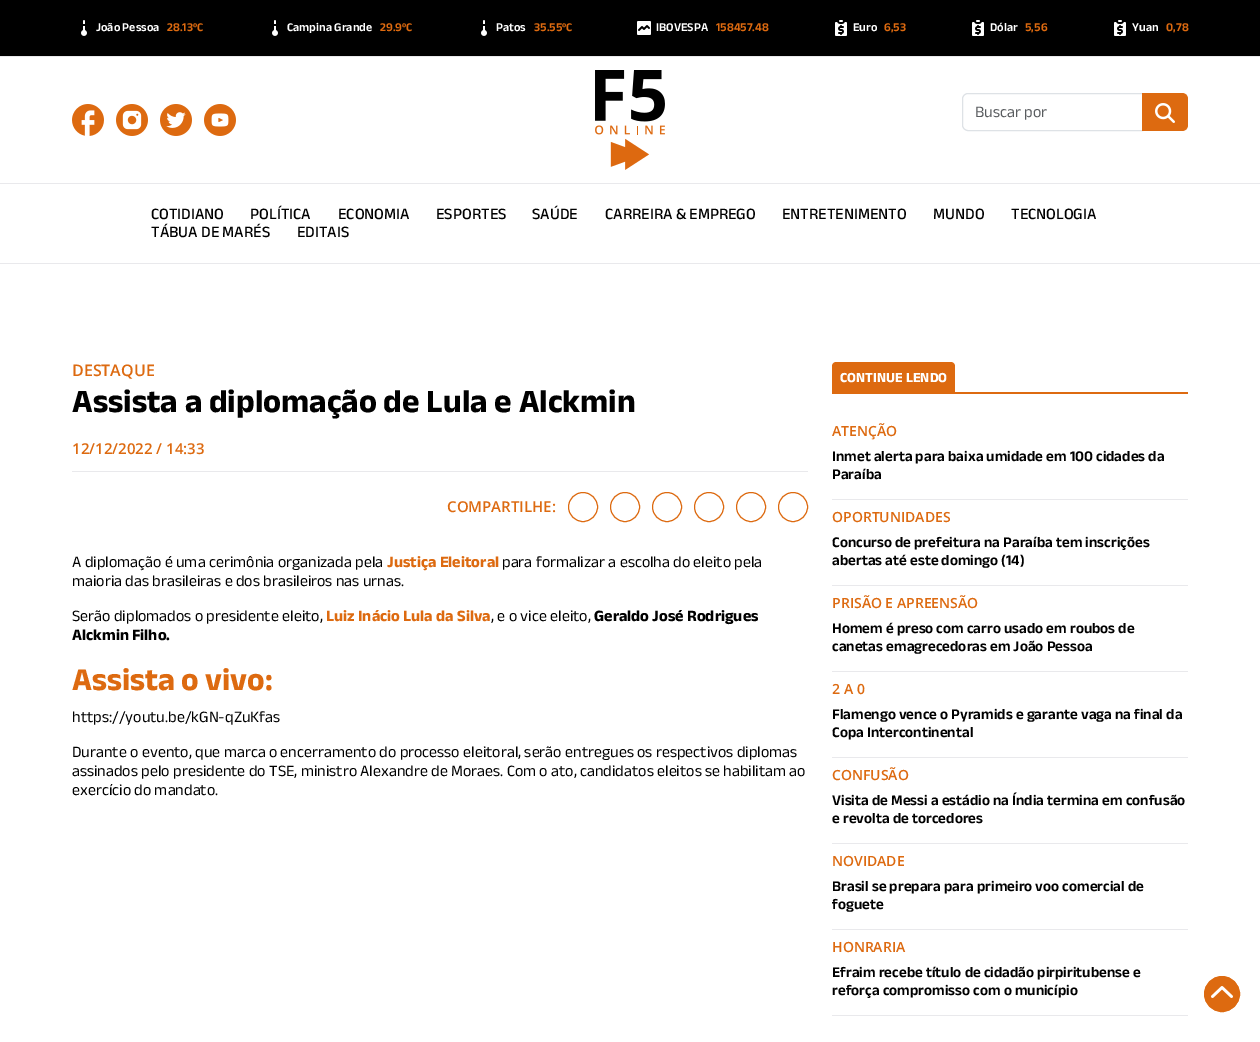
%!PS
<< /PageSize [1260 1042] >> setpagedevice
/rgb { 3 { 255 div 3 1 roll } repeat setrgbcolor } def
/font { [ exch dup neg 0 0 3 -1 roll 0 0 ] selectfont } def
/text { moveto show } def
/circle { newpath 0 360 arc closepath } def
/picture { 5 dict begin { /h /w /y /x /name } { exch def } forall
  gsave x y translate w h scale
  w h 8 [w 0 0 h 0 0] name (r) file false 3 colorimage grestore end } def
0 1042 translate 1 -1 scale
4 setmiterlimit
255 255 255 rgb
0 0 1260 1042 rectfill
0 0 0 rgb
0 0 1260 56 rectfill
(img_01.rgb) 81 20 6 16 picture
(img_01.rgb) 272 20 6 16 picture
(img_01.rgb) 481 20 6 16 picture
(img_02.rgb) 637 21 14 14 picture
(img_03.rgb) 835 20 12 16 picture
(img_03.rgb) 972 20 12 16 picture
(img_03.rgb) 1114 20 12 16 picture
233 233 236 rgb
0 56 1260 1 rectfill
0 183 1260 1 rectfill
(img_04.rgb) 72 104 32 32 picture
(img_05.rgb) 116 104 32 32 picture
(img_06.rgb) 160 104 32 32 picture
(img_07.rgb) 204 104 32 32 picture
(img_08.rgb) 595 70 70 100 picture
222 226 230 rgb
968 93.5 moveto 174.5 0 rlineto 0 37 rlineto -174.5 0 rlineto -3 0 -5.5 -2.5 -5.5 -5.5 rcurveto 0 -26 rlineto 0 -3 2.5 -5.5 5.5 -5.5 rcurveto closepath stroke
221 106 16 rgb
1142 93 moveto 40 0 rlineto 3.5 0 6 2.5 6 6 rcurveto 0 26 rlineto 0 3.5 -2.5 6 -6 6 rcurveto -40 0 rlineto closepath fill
(img_09.rgb) 1155 103 20 20 picture
233 233 236 rgb
0 263 1260 1 rectfill
72 471 736 1 rectfill
221 106 16 rgb
583 507 14.5 circle stroke
625 507 14.5 circle stroke
667 507 14.5 circle stroke
709 507 14.5 circle stroke
751 507 14.5 circle stroke
793 507 14.5 circle stroke
832 392 356 2 rectfill
836 362 moveto 115 0 rlineto 2 0 4 2 4 4 rcurveto 0 26 rlineto -123 0 rlineto 0 -26 rlineto 0 -2 2 -4 4 -4 rcurveto closepath fill
233 233 236 rgb
832 499 356 1 rectfill
832 585 356 1 rectfill
832 671 356 1 rectfill
832 757 356 1 rectfill
832 843 356 1 rectfill
832 929 356 1 rectfill
832 1015 356 1 rectfill
221 106 16 rgb
1222 994 17.5 circle gsave fill grestore
stroke
(img_10.rgb) 1211 986 22 12 picture
/AnekLatin-SemiBold 12 font
255 255 255 rgb
(João Pessoa) 96 31 text
221 106 16 rgb
(28.13ºC) 167 31 text
255 255 255 rgb
(Campina Grande) 287 31 text
221 106 16 rgb
(29.9ºC) 380 31 text
255 255 255 rgb
(Patos) 496 31 text
221 106 16 rgb
(35.55ºC) 534 31 text
255 255 255 rgb
(IBOVESPA) 656 31 text
221 106 16 rgb
(158457.48) 716 31 text
255 255 255 rgb
(Euro) 853 31 text
221 106 16 rgb
(6,53) 884 31 text
255 255 255 rgb
(Dólar) 990 31 text
221 106 16 rgb
(5,56) 1025 31 text
255 255 255 rgb
(Yuan) 1132 31 text
221 106 16 rgb
(0,78) 1166 31 text
/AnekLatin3-Medium 16 font
89 92 95 rgb
(Buscar por) 975 117 text
/AnekLatin-Medium 16 font
0 0 0 rgb
(COTIDIANO) 151 219 text
(POLÍTICA) 250 219 text
(ECONOMIA) 338 219 text
(ESPORTES) 436 219 text
(SAÚDE) 532 219 text
(CARREIRA & EMPREGO) 605 219 text
(ENTRETENIMENTO) 782 219 text
(MUNDO) 933 219 text
(TECNOLOGIA) 1011 219 text
(TÁBUA DE MARÉS) 151 237 text
(EDITAIS) 297 237 text
/OpenSans-SemiBold 16 font
221 106 16 rgb
(DESTAQUE) 72 376 text
/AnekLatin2-Medium 33 font
0 0 0 rgb
(Assista a diplomação de Lula e Alckmin) 72 412 text
/OpenSans-SemiBold 15 font
221 106 16 rgb
(12/12/2022 / 14:33) 72 454 text
(COMPARTILHE:) 447 512 text
/AnekLatin3-Medium 16 font
0 0 0 rgb
(A diplomação é uma cerimônia organizada pela) 72 567 text
/AnekLatin2-Medium 16 font
221 106 16 rgb
(Justiça Eleitoral) 387 567 text
/AnekLatin3-Medium 16 font
0 0 0 rgb
(para formalizar a escolha do eleito pela) 502 567 text
(maioria das brasileiras e dos brasileiros nas urnas.) 72 586 text
(Serão diplomados o presidente eleito,) 72 621 text
/AnekLatin2-Medium 16 font
221 106 16 rgb
(Luiz Inácio Lula da Silva) 326 621 text
/AnekLatin3-Medium 16 font
0 0 0 rgb
(, e o vice eleito,) 491 621 text
/AnekLatin2-Medium 16 font
(Geraldo José Rodrigues) 594 621 text
(Alckmin Filho.) 72 640 text
/AnekLatin2-Medium 32 font
221 106 16 rgb
(Assista o vivo:) 72 690 text
/AnekLatin3-Medium 16 font
0 0 0 rgb
(https://youtu.be/kGN-qZuKfas) 72 722 text
(Durante o evento, que marca o encerramento do processo eleitoral, serão entregues os respectivos diplomas) 72 757 text
(assinados pelo presidente do TSE, ministro Alexandre de Moraes. Com o ato, candidatos eleitos se habilitam ao) 72 776 text
(exercício do mandato.) 72 795 text
/AnekLatin2-Medium 14 font
255 255 255 rgb
(CONTINUE LENDO) 840 382 text
/OpenSans-SemiBold 14 font
221 106 16 rgb
(ATENÇÃO) 832 436 text
/AnekLatin-SemiBold 15 font
0 0 0 rgb
(Inmet alerta para baixa umidade em 100 cidades da) 832 461 text
(Paraíba) 832 479 text
/OpenSans-SemiBold 14 font
221 106 16 rgb
(OPORTUNIDADES) 832 522 text
/AnekLatin-SemiBold 15 font
0 0 0 rgb
(Concurso de prefeitura na Paraíba tem inscrições) 832 547 text
(abertas até este domingo \(14\)) 832 565 text
/OpenSans-SemiBold 14 font
221 106 16 rgb
(PRISÃO E APREENSÃO) 832 608 text
/AnekLatin-SemiBold 15 font
0 0 0 rgb
(Homem é preso com carro usado em roubos de) 832 633 text
(canetas emagrecedoras em João Pessoa) 832 651 text
/OpenSans-SemiBold 14 font
221 106 16 rgb
(2 A 0) 832 694 text
/AnekLatin-SemiBold 15 font
0 0 0 rgb
(Flamengo vence o Pyramids e garante vaga na final da) 832 719 text
(Copa Intercontinental) 832 737 text
/OpenSans-SemiBold 14 font
221 106 16 rgb
(CONFUSÃO) 832 780 text
/AnekLatin-SemiBold 15 font
0 0 0 rgb
(Visita de Messi a estádio na Índia termina em confusão) 832 805 text
(e revolta de torcedores) 832 823 text
/OpenSans-SemiBold 14 font
221 106 16 rgb
(NOVIDADE) 832 866 text
/AnekLatin-SemiBold 15 font
0 0 0 rgb
(Brasil se prepara para primeiro voo comercial de) 832 891 text
(foguete) 832 909 text
/OpenSans-SemiBold 14 font
221 106 16 rgb
(HONRARIA) 832 952 text
/AnekLatin-SemiBold 15 font
0 0 0 rgb
(Efraim recebe título de cidadão pirpiritubense e) 832 977 text
(reforça compromisso com o município) 832 995 text
showpage
